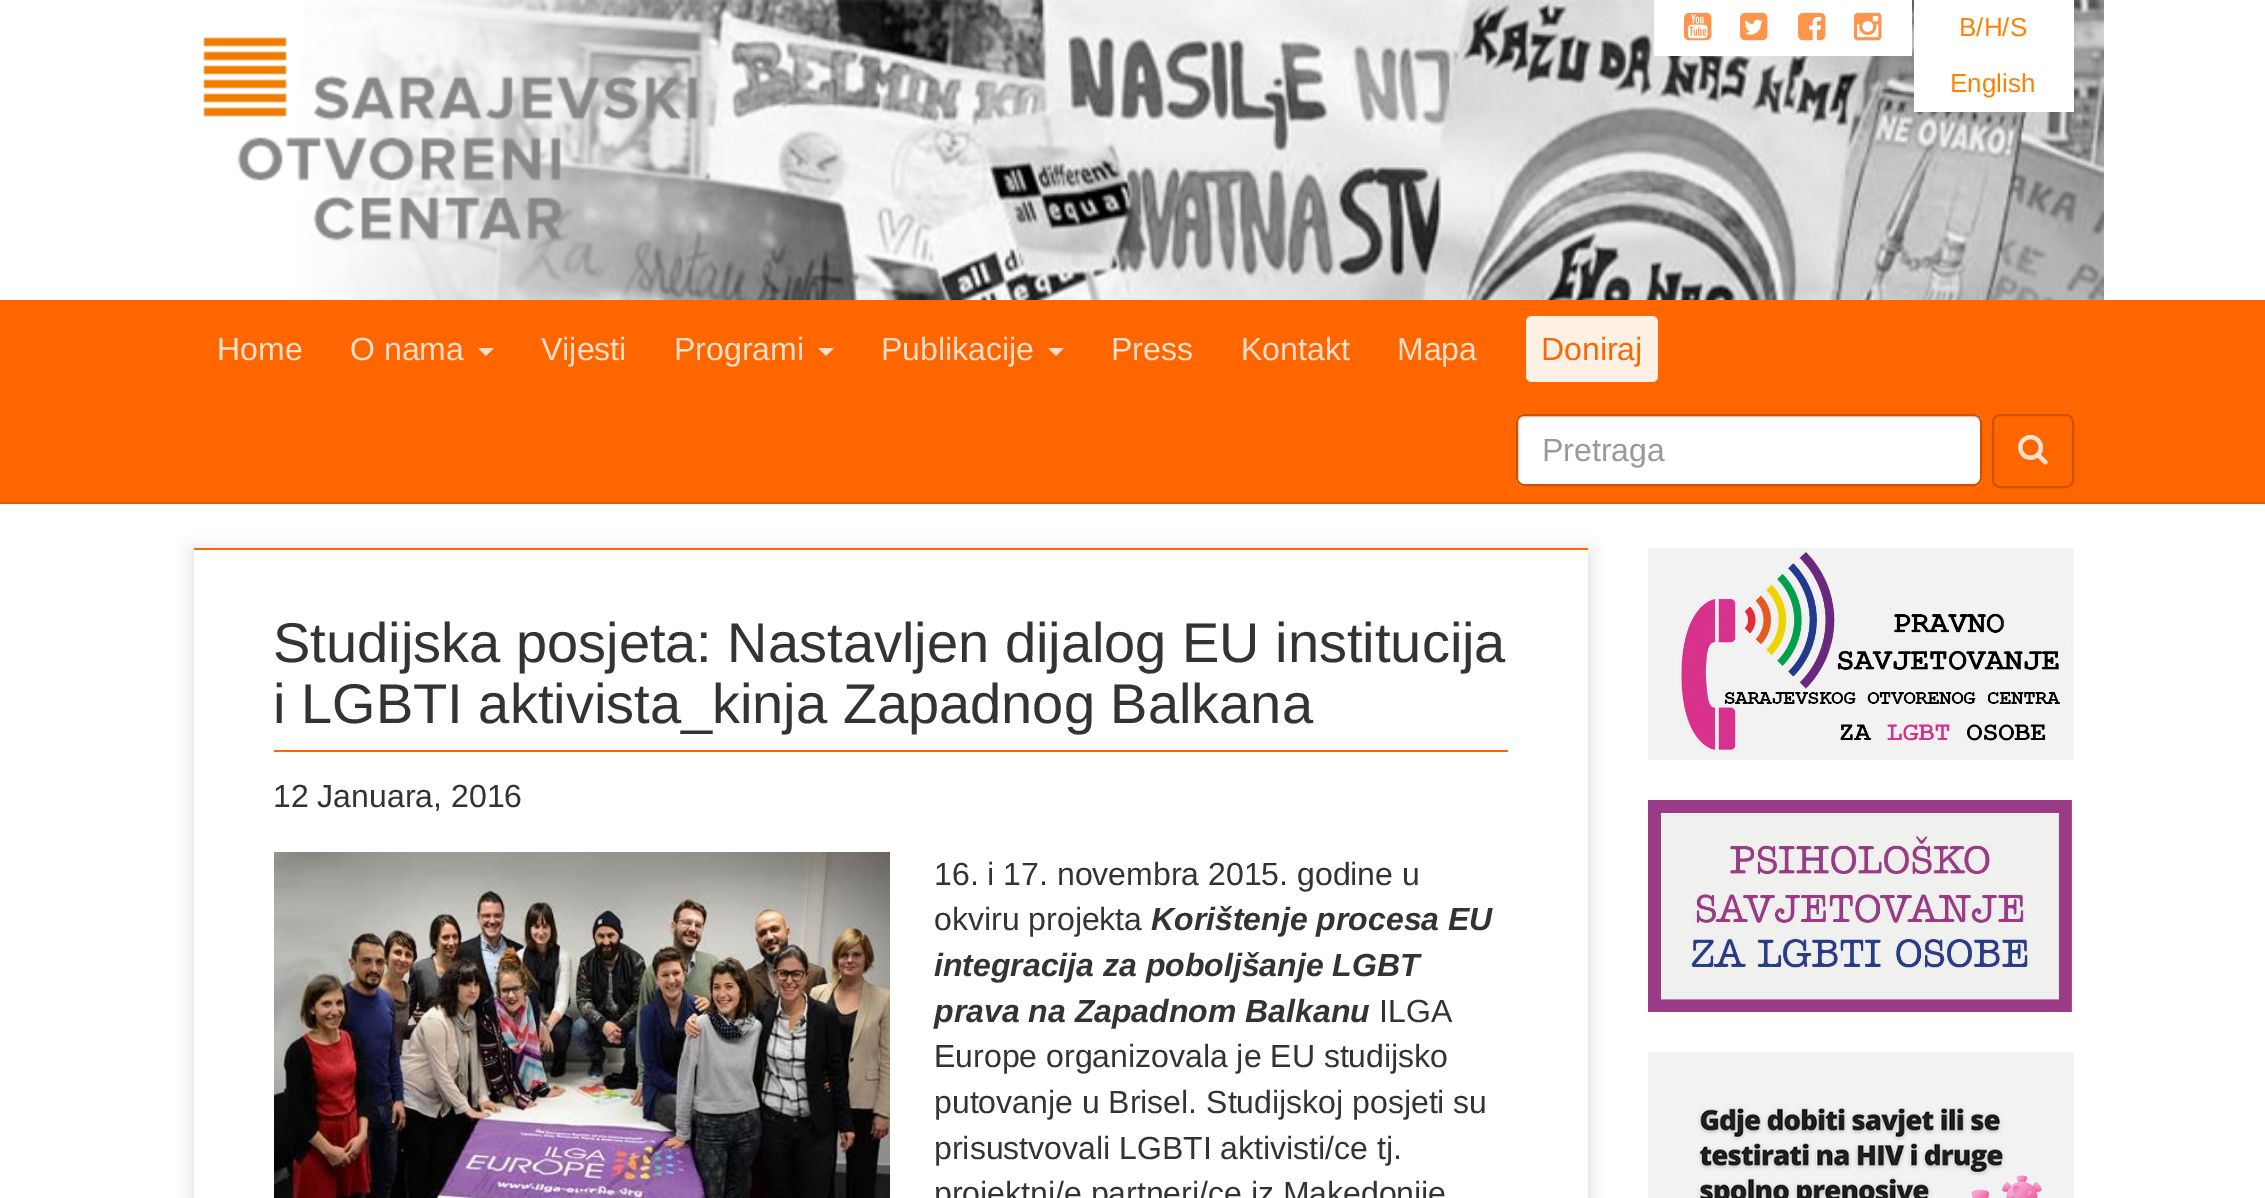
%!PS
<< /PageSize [2265 1198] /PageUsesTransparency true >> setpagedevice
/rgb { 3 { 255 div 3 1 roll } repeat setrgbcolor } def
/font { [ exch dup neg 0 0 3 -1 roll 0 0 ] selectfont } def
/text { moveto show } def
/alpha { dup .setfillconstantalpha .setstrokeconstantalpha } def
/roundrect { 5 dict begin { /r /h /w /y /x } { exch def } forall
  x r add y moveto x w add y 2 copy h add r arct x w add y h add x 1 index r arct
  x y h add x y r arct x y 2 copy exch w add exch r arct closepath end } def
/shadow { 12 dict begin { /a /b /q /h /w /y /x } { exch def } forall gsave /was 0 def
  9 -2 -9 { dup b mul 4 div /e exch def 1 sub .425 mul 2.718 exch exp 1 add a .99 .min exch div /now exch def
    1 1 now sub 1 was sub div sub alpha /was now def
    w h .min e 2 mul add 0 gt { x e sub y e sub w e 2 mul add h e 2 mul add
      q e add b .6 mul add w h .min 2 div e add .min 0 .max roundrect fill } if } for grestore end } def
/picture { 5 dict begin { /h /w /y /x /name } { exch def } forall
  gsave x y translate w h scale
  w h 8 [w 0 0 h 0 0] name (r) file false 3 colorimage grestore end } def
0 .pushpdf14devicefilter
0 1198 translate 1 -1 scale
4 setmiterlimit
255 255 255 rgb
0 0 2265 1198 rectfill
(img_01.rgb) 295 0 1809 300 picture
(img_02.rgb) 164 0 711 300 picture
1654 0 258 56 rectfill
(img_03.rgb) 1684 12 28 29 picture
(img_04.rgb) 1740 12 28 29 picture
(img_05.rgb) 1798 12 28 29 picture
(img_06.rgb) 1854 12 28 29 picture
1914 0 160 112 rectfill
255 102 0 rgb
0 300 2265 202 rectfill
222 89 0 rgb
0 502 2265 2 rectfill
255 224 204 rgb
478 348 moveto 16 0 rlineto -8 8 rlineto closepath fill
818 348 moveto 16 0 rlineto -8 8 rlineto closepath fill
1048 348 moveto 16 0 rlineto -8 8 rlineto closepath fill
255 240 230 rgb
1526 316 132 66 6 roundrect fill
255 255 255 rgb
1516 414 466 72 8 roundrect fill
236 236 236 rgb
1524 418 moveto 450 0 rlineto 3 0 6 3 6 6 rcurveto 0 -4 -1 -8 -6 -8 rcurveto -450 0 rlineto -5 0 -6 4 -6 8 rcurveto 0 -3 3 -6 6 -6 rcurveto closepath fill
204 82 0 rgb
2 setlinewidth
1517 415 464 70 7 roundrect stroke
1993 415 80 72 7 roundrect stroke
(img_07.rgb) 2018 434 30 31 picture
gsave
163 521 moveto 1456 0 rlineto 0 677 rlineto -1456 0 rlineto closepath 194 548 moveto 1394 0 rlineto 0 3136 rlineto -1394 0 rlineto closepath eoclip newpath
0 0 0 rgb
194 552 1394 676 0 10 0.15 shadow
grestore
255 102 0 rgb
194 548 1394 2 rectfill
274 750 1234 2 rectfill
(img_08.rgb) 274 852 616 346 picture
(img_09.rgb) 1648 548 426 212 picture
(img_10.rgb) 1648 800 424 212 picture
(img_11.rgb) 1648 1052 426 146 picture
/LiberationSans-Regular 26 font
255 128 0 rgb
(B/H/S) 1959 36 text
(English) 1950 92 text
/LiberationSans-Regular 32 font
255 224 204 rgb
(Home) 217 360 text
(O nama) 350 360 text
(Vijesti) 541 360 text
(Programi) 674 360 text
(Publikacije) 881 360 text
(Press) 1111 360 text
(Kontakt) 1241 360 text
(Mapa) 1397 360 text
255 102 0 rgb
(Doniraj) 1541 360 text
153 153 153 rgb
(Pretraga) 1542 461 text
/LiberationSans-Regular 56 font
51 51 51 rgb
(Studijska posjeta: Nastavljen dijalog EU institucija) 273 662 text
(i LGBTI aktivista_kinja Zapadnog Balkana) 273 723 text
/LiberationSans-Regular 32 font
(12 Januara, 2016) 273 807 text
(16. i 17. novembra 2015. godine u) 934 885 text
(okviru projekta) 934 930 text
/LiberationSans-BoldItalic 32 font
(Korištenje procesa EU) 1151 930 text
(integracija za poboljšanje LGBT) 934 976 text
(prava na Zapadnom Balkanu) 934 1022 text
/LiberationSans-Regular 32 font
(ILGA) 1379 1022 text
(Europe organizovala je EU studijsko) 934 1067 text
(putovanje u Brisel. Studijskoj posjeti su) 934 1113 text
(prisustvovali LGBTI aktivisti/ce tj.) 934 1159 text
(projektni/e partneri/ce iz Makedonije) 934 1204 text
.poppdf14devicefilter showpage
